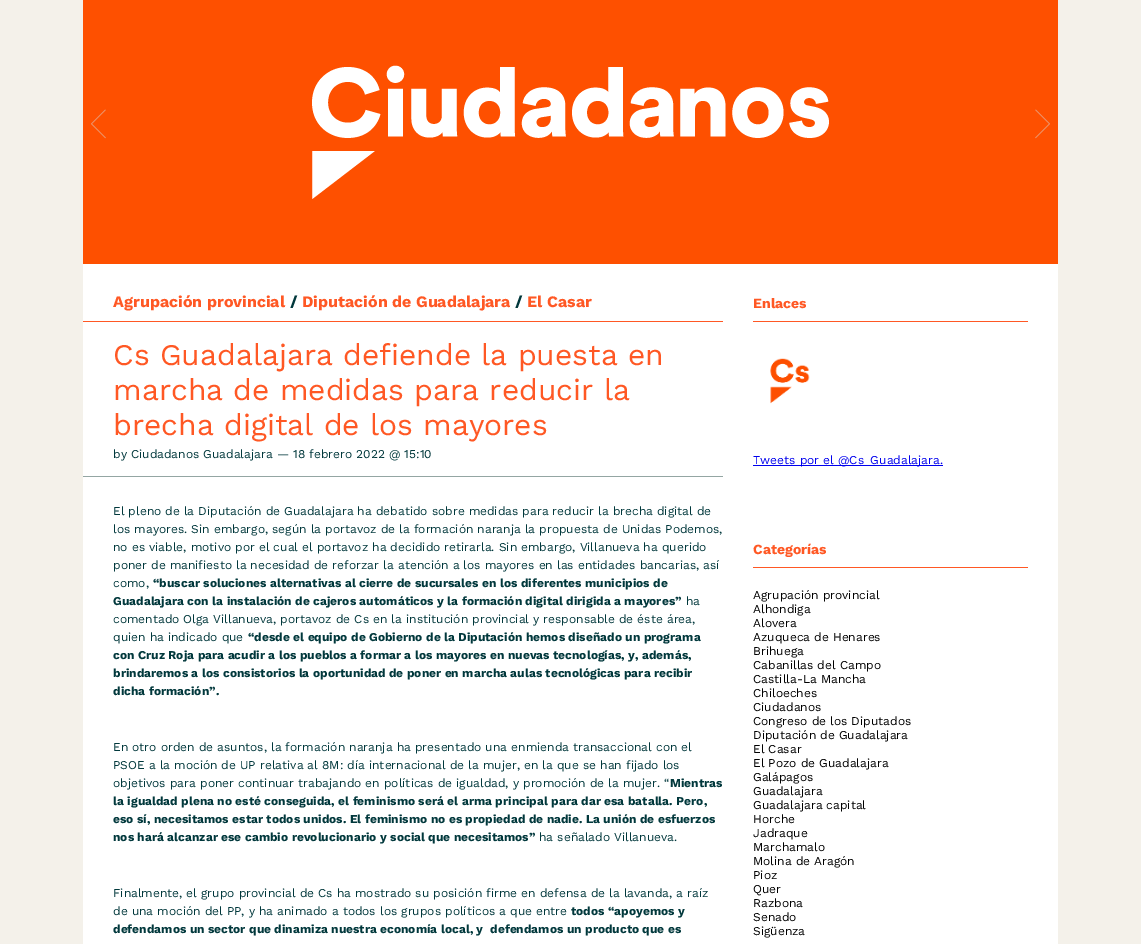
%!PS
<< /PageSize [1141 944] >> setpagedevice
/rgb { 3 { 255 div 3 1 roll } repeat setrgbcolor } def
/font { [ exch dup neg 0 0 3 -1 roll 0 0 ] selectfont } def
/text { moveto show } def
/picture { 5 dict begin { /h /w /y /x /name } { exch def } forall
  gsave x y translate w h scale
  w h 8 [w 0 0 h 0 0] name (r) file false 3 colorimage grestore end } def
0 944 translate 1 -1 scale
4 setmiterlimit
244 241 234 rgb
0 0 1141 944 rectfill
255 255 255 rgb
83 264 975 680 rectfill
(img_01.rgb) 83 0 975 264 picture
(img_02.rgb) 91 109 15 30 picture
(img_03.rgb) 1035 109 15 30 picture
255 88 36 rgb
83 321 640 1 rectfill
148 166 163 rgb
83 476 640 1 rectfill
255 88 36 rgb
753 321 275 1 rectfill
(img_04.rgb) 770 358 40 46 picture
0 0 238 rgb
753 465 190 1 rectfill
255 88 36 rgb
753 567 275 1 rectfill
/WorkSans-Bold 16 font
(Agrupación provincial) 113 307 text
1 56 60 rgb
(/) 290 307 text
255 88 36 rgb
(Diputación de Guadalajara) 302 307 text
1 56 60 rgb
(/) 515 307 text
255 88 36 rgb
(El Casar) 527 307 text
/WorkSans-Regular 30 font
(Cs Guadalajara defiende la puesta en) 113 365 text
(marcha de medidas para reducir la) 113 400 text
(brecha digital de los mayores) 113 435 text
/WorkSans-Regular 12 font
1 56 60 rgb
(by Ciudadanos Guadalajara — 18 febrero 2022 @ 15:10) 113 458 text
(El pleno de la Diputación de Guadalajara ha debatido sobre medidas para reducir la brecha digital de) 113 515 text
(los mayores. Sin embargo, según la portavoz de la formación naranja la propuesta de Unidas Podemos,) 113 533 text
(no es viable, motivo por el cual el portavoz ha decidido retirarla. Sin embargo, Villanueva ha querido) 113 551 text
(poner de manifiesto la necesidad de reforzar la atención a los mayores en las entidades bancarias, así) 113 569 text
(como,) 113 587 text
/WorkSans-Bold 12 font
(“buscar soluciones alternativas al cierre de sucursales en los diferentes municipios de) 153 587 text
(Guadalajara con la instalación de cajeros automáticos y la formación digital dirigida a mayores”) 113 605 text
/WorkSans-Regular 12 font
(ha) 686 605 text
(comentado Olga Villanueva, portavoz de Cs en la institución provincial y responsable de éste área,) 113 623 text
(quien ha indicado que) 113 641 text
/WorkSans-Bold 12 font
(“desde el equipo de Gobierno de la Diputación hemos diseñado un programa) 248 641 text
(con Cruz Roja para acudir a los pueblos a formar a los mayores en nuevas tecnologías, y, además,) 113 659 text
(brindaremos a los consistorios la oportunidad de poner en marcha aulas tecnológicas para recibir) 113 677 text
(dicha formación”.) 113 695 text
/WorkSans-Regular 12 font
(En otro orden de asuntos, la formación naranja ha presentado una enmienda transaccional con el) 113 751 text
(PSOE a la moción de UP relativa al 8M: día internacional de la mujer, en la que se han fijado los) 113 769 text
(objetivos para poner continuar trabajando en políticas de igualdad, y promoción de la mujer. “) 113 787 text
/WorkSans-Bold 12 font
(Mientras) 670 787 text
(la igualdad plena no esté conseguida, el feminismo será el arma principal para dar esa batalla. Pero,) 113 805 text
(eso sí, necesitamos estar todos unidos. El feminismo no es propiedad de nadie. La unión de esfuerzos) 113 823 text
(nos hará alcanzar ese cambio revolucionario y social que necesitamos”) 113 841 text
/WorkSans-Regular 12 font
(ha señalado Villanueva.) 539 841 text
(Finalmente, el grupo provincial de Cs ha mostrado su posición firme en defensa de la lavanda, a raíz) 113 897 text
(de una moción del PP, y ha animado a todos los grupos políticos a que entre) 113 915 text
/WorkSans-Bold 12 font
(todos “apoyemos y) 571 915 text
(defendamos un sector que dinamiza nuestra economía local, y  defendamos un producto que es) 113 933 text
/WorkSans-Bold 14 font
255 88 36 rgb
(Enlaces) 753 308 text
/WorkSans-Regular 12 font
0 0 238 rgb
(Tweets por el @Cs_Guadalajara.) 753 464 text
/WorkSans-Bold 14 font
255 88 36 rgb
(Categorías) 753 554 text
/WorkSans-Regular 12 font
0 0 0 rgb
(Agrupación provincial) 753 599 text
(Alhondiga) 753 613 text
(Alovera) 753 627 text
(Azuqueca de Henares) 753 641 text
(Brihuega) 753 655 text
(Cabanillas del Campo) 753 669 text
(Castilla-La Mancha) 753 683 text
(Chiloeches) 753 697 text
(Ciudadanos) 753 711 text
(Congreso de los Diputados) 753 725 text
(Diputación de Guadalajara) 753 739 text
(El Casar) 753 753 text
(El Pozo de Guadalajara) 753 767 text
(Galápagos) 753 781 text
(Guadalajara) 753 795 text
(Guadalajara capital) 753 809 text
(Horche) 753 823 text
(Jadraque) 753 837 text
(Marchamalo) 753 851 text
(Molina de Aragón) 753 865 text
(Pioz) 753 879 text
(Quer) 753 893 text
(Razbona) 753 907 text
(Senado) 753 921 text
(Sigüenza) 753 935 text
showpage
